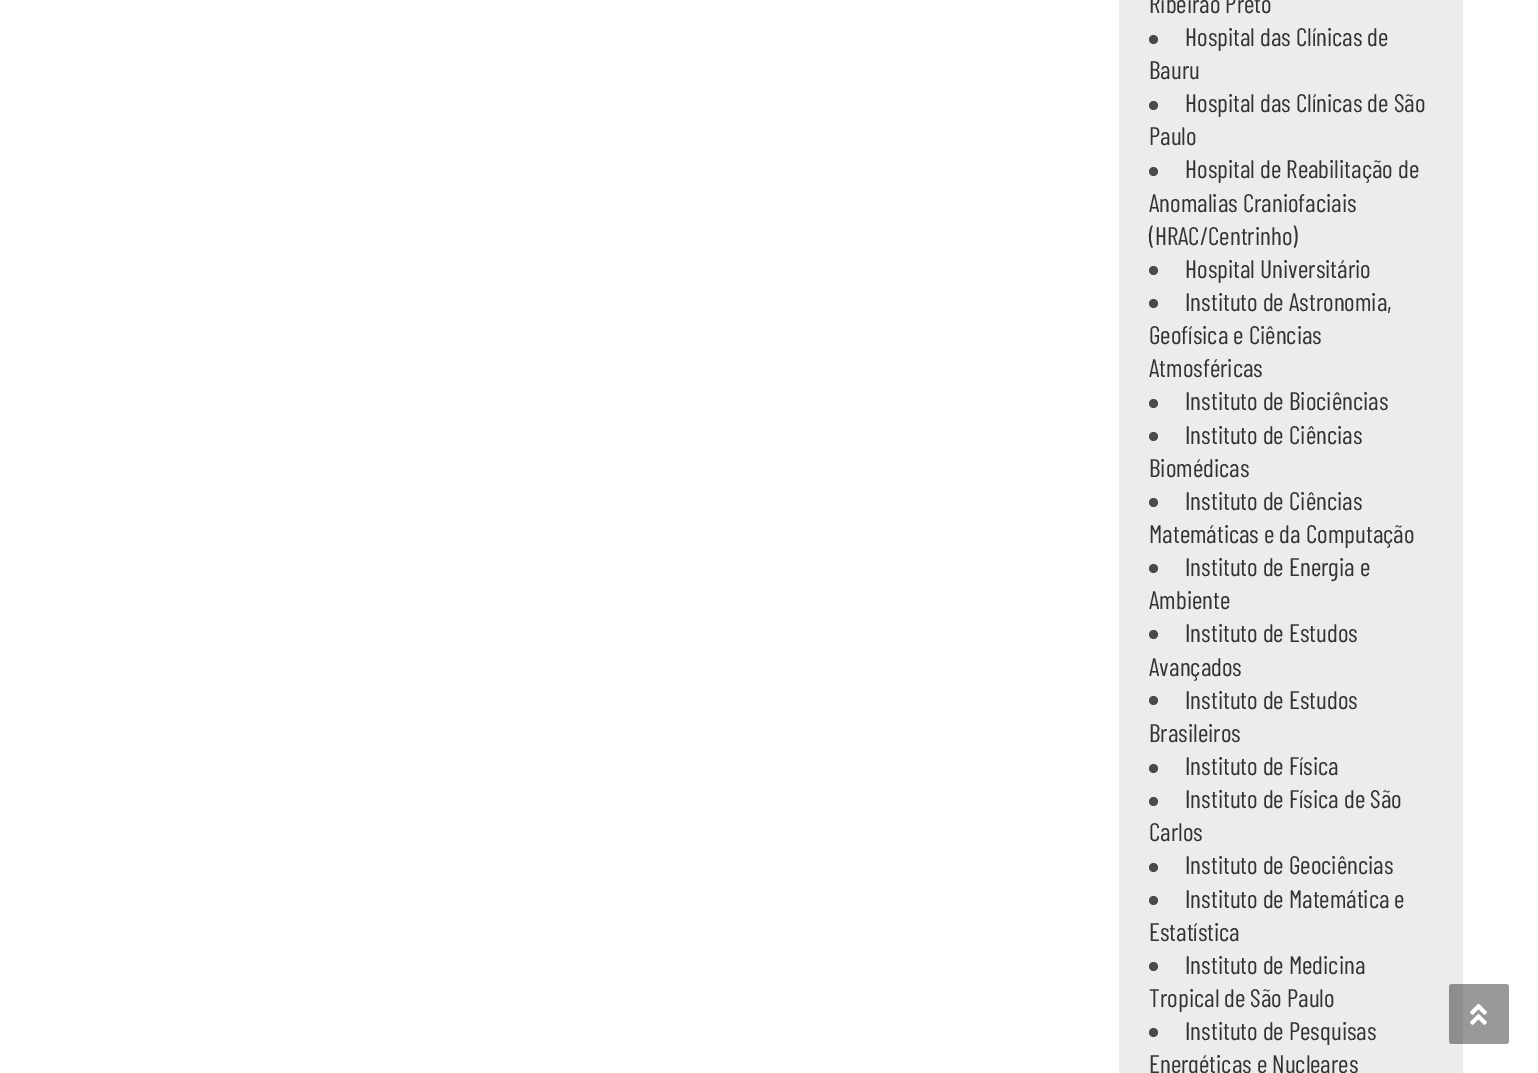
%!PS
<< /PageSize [1538 1073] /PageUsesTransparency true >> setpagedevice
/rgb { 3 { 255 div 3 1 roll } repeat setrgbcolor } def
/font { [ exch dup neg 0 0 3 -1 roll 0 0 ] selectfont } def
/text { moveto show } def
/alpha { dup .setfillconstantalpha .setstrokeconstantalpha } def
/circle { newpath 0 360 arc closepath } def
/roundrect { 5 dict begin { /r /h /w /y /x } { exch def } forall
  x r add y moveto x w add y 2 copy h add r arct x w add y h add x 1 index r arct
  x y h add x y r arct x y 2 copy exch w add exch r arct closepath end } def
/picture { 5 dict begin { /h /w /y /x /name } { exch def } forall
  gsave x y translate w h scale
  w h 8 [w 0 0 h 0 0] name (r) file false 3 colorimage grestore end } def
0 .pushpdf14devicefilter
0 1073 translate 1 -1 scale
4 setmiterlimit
255 255 255 rgb
0 0 1538 1073 rectfill
236 236 236 rgb
1119 0 344 1073 rectfill
74 74 74 rgb
1153.5 39.5 4.5 circle fill
1153.5 105.5 4.5 circle fill
1153.5 171.5 4.5 circle fill
1153.5 270.5 4.5 circle fill
1153.5 303.5 4.5 circle fill
1153.5 403.5 4.5 circle fill
1153.5 436.5 4.5 circle fill
1153.5 502.5 4.5 circle fill
1153.5 568.5 4.5 circle fill
1153.5 634.5 4.5 circle fill
1153.5 700.5 4.5 circle fill
1153.5 768.5 4.5 circle fill
1153.5 801.5 4.5 circle fill
1153.5 867.5 4.5 circle fill
1153.5 900.5 4.5 circle fill
1153.5 966.5 4.5 circle fill
1153.5 1032.5 4.5 circle fill
0.4 alpha
0 0 0 rgb
1449 984 60 60 3 roundrect fill
1 alpha
(img_01.rgb) 1470 1003 17 22 picture
/BarlowCondensed-Regular 25.4 font
51 51 51 rgb
(Ribeirão Preto) 1149 13 text
(Hospital das Clínicas de) 1185 46 text
(Bauru) 1149 79 text
(Hospital das Clínicas de São) 1185 112 text
(Paulo) 1149 145 text
(Hospital de Reabilitação de) 1185 178 text
(Anomalias Craniofaciais) 1149 212 text
(\(HRAC/Centrinho\)) 1149 245 text
(Hospital Universitário) 1185 278 text
(Instituto de Astronomia,) 1185 311 text
(Geofísica e Ciências) 1149 344 text
(Atmosféricas) 1149 377 text
(Instituto de Biociências) 1185 410 text
(Instituto de Ciências) 1185 444 text
(Biomédicas) 1149 477 text
(Instituto de Ciências) 1185 510 text
(Matemáticas e da Computação) 1149 543 text
(Instituto de Energia e) 1185 576 text
(Ambiente) 1149 609 text
(Instituto de Estudos) 1185 642 text
(Avançados) 1149 676 text
(Instituto de Estudos) 1185 709 text
(Brasileiros) 1149 742 text
(Instituto de Física) 1185 775 text
(Instituto de Física de São) 1185 808 text
(Carlos) 1149 841 text
(Instituto de Geociências) 1185 874 text
(Instituto de Matemática e) 1185 908 text
(Estatística) 1149 941 text
(Instituto de Medicina) 1185 974 text
(Tropical de São Paulo) 1149 1007 text
(Instituto de Pesquisas) 1185 1040 text
(Energéticas e Nucleares) 1149 1073 text
.poppdf14devicefilter showpage
